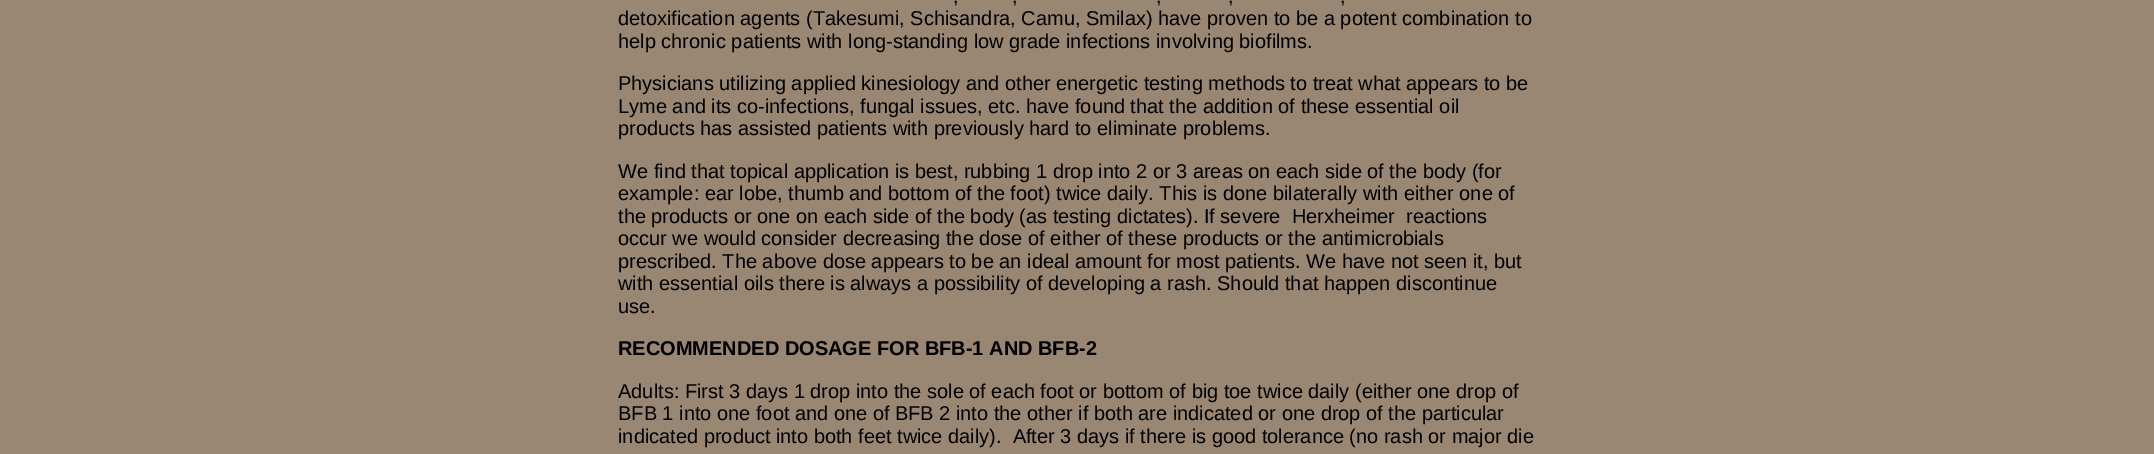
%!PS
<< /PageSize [2154 454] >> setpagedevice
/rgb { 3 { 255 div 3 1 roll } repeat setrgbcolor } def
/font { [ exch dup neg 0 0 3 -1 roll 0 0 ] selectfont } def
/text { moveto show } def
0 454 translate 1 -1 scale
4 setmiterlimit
153 135 115 rgb
0 0 2154 454 rectfill
/LiberationSans-Regular 20 font
0 0 0 rgb
(,) 953 3 text
(,) 1012 3 text
(,) 1156 3 text
(,) 1228 3 text
(,) 1340 3 text
(detoxification agents \(Takesumi, Schisandra, Camu, Smilax\) have proven to be a potent combination to) 618 25 text
(help chronic patients with long-standing low grade infections involving biofilms.) 618 48 text
(Physicians utilizing applied kinesiology and other energetic testing methods to treat what appears to be) 618 90 text
(Lyme and its co-infections, fungal issues, etc. have found that the addition of these essential oil) 618 113 text
(products has assisted patients with previously hard to eliminate problems.) 618 135 text
(We find that topical application is best, rubbing 1 drop into 2 or 3 areas on each side of the body \(for) 618 178 text
(example: ear lobe, thumb and bottom of the foot\) twice daily. This is done bilaterally with either one of) 618 200 text
(the products or one on each side of the body \(as testing dictates\). If severe  Herxheimer  reactions) 618 223 text
(occur we would consider decreasing the dose of either of these products or the antimicrobials) 618 245 text
(prescribed. The above dose appears to be an ideal amount for most patients. We have not seen it, but) 618 268 text
(with essential oils there is always a possibility of developing a rash. Should that happen discontinue) 618 290 text
(use.) 618 313 text
/LiberationSans-Bold 20 font
(RECOMMENDED DOSAGE FOR BFB-1 AND BFB-2) 618 355 text
/LiberationSans-Regular 20 font
(Adults: First 3 days 1 drop into the sole of each foot or bottom of big toe twice daily \(either one drop of) 618 398 text
(BFB 1 into one foot and one of BFB 2 into the other if both are indicated or one drop of the particular) 618 420 text
(indicated product into both feet twice daily\).  After 3 days if there is good tolerance \(no rash or major die) 618 443 text
showpage
